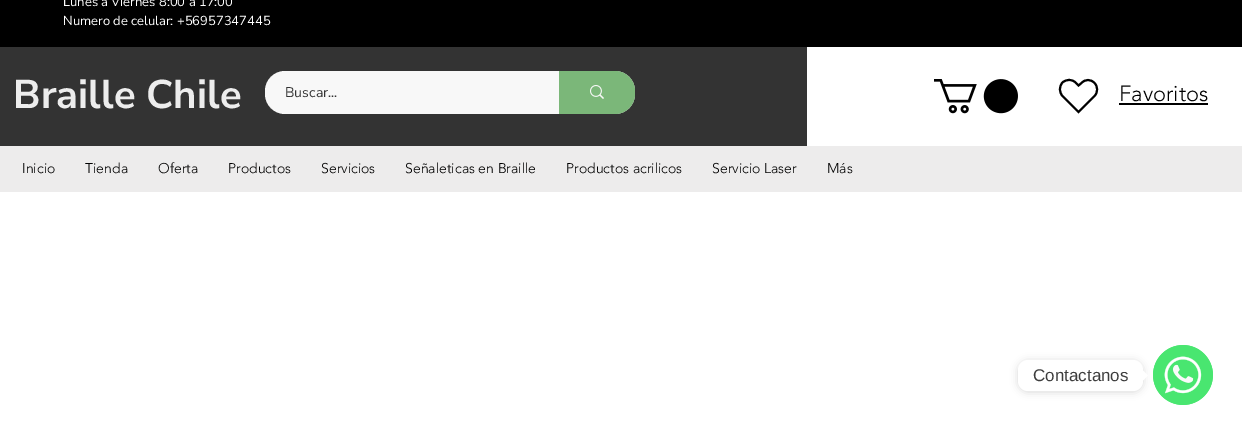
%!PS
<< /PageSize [1242 430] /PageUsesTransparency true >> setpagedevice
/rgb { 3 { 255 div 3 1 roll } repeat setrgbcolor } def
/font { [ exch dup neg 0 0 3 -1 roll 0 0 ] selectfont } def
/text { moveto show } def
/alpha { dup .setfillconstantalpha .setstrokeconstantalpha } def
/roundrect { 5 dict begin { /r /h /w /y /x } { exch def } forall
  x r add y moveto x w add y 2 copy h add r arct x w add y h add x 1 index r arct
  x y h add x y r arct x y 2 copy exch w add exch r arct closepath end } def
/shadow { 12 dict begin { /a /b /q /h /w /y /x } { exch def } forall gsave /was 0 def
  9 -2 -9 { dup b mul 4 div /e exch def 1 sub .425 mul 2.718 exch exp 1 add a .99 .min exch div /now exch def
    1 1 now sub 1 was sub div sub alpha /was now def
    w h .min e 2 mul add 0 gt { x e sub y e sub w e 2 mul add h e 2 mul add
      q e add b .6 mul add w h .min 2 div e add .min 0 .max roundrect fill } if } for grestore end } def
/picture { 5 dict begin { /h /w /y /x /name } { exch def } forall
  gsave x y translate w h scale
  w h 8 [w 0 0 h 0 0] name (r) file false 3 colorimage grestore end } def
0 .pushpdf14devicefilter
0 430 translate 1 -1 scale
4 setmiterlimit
255 255 255 rgb
0 0 1242 430 rectfill
0 0 0 rgb
0 0 1242 47 rectfill
51 51 51 rgb
0 47 807 99 rectfill
248 248 248 rgb
265 71 370 43 20 roundrect fill
0.8 alpha
92 167 89 rgb
559 71 moveto 56 0 rlineto 11 0 20 9 20 20 rcurveto 0 3 rlineto 0 11 -9 20 -20 20 rcurveto -56 0 rlineto closepath fill
1 alpha
(img_01.rgb) 590 85 14 14 picture
(img_02.rgb) 934 79 84 35 picture
0 0 0 rgb
2 setlinewidth
1094.5 83 moveto -3.5 -4 -9.5 -4 -13 0 rcurveto -3 2.5 rlineto -3 -3 rlineto -3.5 -3.5 -9 -3.5 -13 0 rcurveto -3.5 4 -3.5 9.5 0 13.5 rcurveto 16 16 rlineto 16 -16 rlineto 3.5 -3.5 3.5 -9.5 0 -13 rcurveto closepath stroke
1119 103 89 2 rectfill
237 236 236 rgb
0 146 1242 46 rectfill
(img_03.rgb) 1153 345 60 60 picture
0 0 0 rgb
1018 361 125 31 10 4 0.15 shadow
255 255 255 rgb
1018 360 125 31 10 roundrect fill
1143 380.5 moveto 0 -10 rlineto 5 5 rlineto closepath fill
/NunitoSans-Regular 13 font
(Lunes a Viernes 8:00 a 17:00) 63 6 text
(Numero de celular: +56957347445) 63 25 text
/NunitoSans-Bold 40 font
237 237 237 rgb
(Braille Chile) 13 108 text
/NunitoSans-Regular 14 font
51 51 51 rgb
(Buscar...) 285 97 text
/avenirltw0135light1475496-Light 22 font
0 0 0 rgb
(Favoritos) 1119 101 text
/avenirltw0135light1475496-Light 14 font
(Inicio) 22 173 text
(Tienda) 85 173 text
(Oferta) 158 173 text
(Productos) 228 173 text
(Servicios) 321 173 text
(Señaleticas en Braille) 405 173 text
(Productos acrilicos) 566 173 text
(Servicio Laser) 712 173 text
(Más) 827 173 text
/LiberationSans-Regular 17 font
61 61 61 rgb
(Contactanos) 1033 381 text
.poppdf14devicefilter showpage
